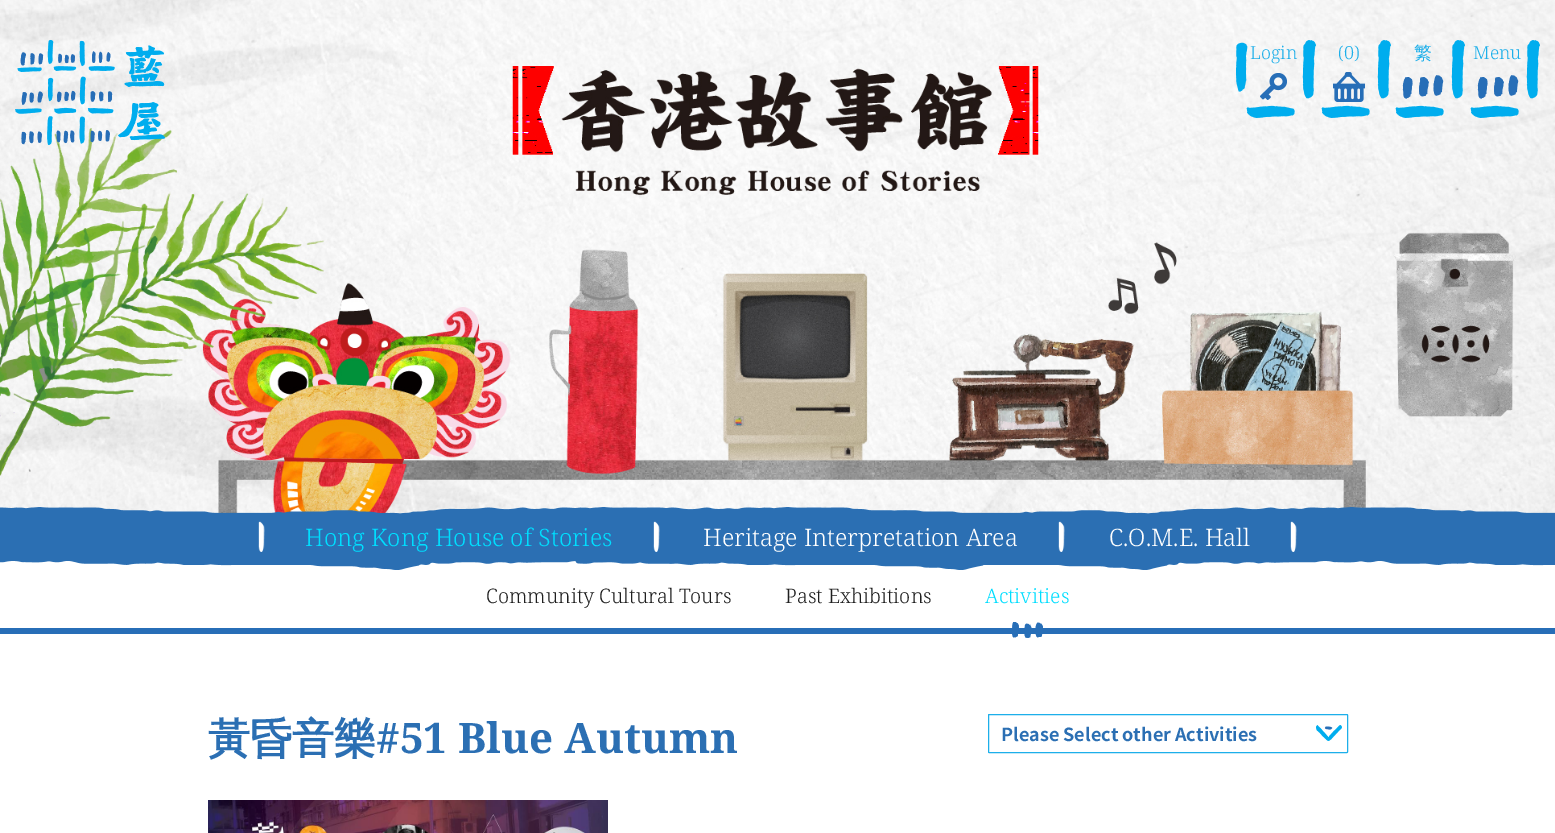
%!PS
<< /PageSize [1555 833] >> setpagedevice
/rgb { 3 { 255 div 3 1 roll } repeat setrgbcolor } def
/font { [ exch dup neg 0 0 3 -1 roll 0 0 ] selectfont } def
/text { moveto show } def
/roundrect { 5 dict begin { /r /h /w /y /x } { exch def } forall
  x r add y moveto x w add y 2 copy h add r arct x w add y h add x 1 index r arct
  x y h add x y r arct x y 2 copy exch w add exch r arct closepath end } def
/picture { 5 dict begin { /h /w /y /x /name } { exch def } forall
  gsave x y translate w h scale
  w h 8 [w 0 0 h 0 0] name (r) file false 3 colorimage grestore end } def
0 833 translate 1 -1 scale
4 setmiterlimit
255 255 255 rgb
0 0 1555 833 rectfill
(img_01.rgb) 0 0 1555 514 picture
(img_02.rgb) 15 40 151 105 picture
(img_03.rgb) 1236 42 12 50 picture
(img_04.rgb) 1246 40 70 78 picture
(img_05.rgb) 1260 73 27 27 picture
(img_06.rgb) 1321 40 70 78 picture
(img_07.rgb) 1333 72 32 30 picture
(img_08.rgb) 1395 40 70 78 picture
(img_09.rgb) 1402 75 42 24 picture
(img_10.rgb) 1470 40 70 78 picture
(img_11.rgb) 1477 75 42 24 picture
43 111 179 rgb
0 517 1555 40 rectfill
(img_12.rgb) 0 507 1555 10 picture
(img_13.rgb) 258 521 7 31 picture
(img_13.rgb) 653 521 7 31 picture
(img_13.rgb) 1058 521 7 31 picture
(img_13.rgb) 1290 521 7 31 picture
(img_14.rgb) 0 557 1555 13 picture
39 110 183 rgb
0 628 1555 6 rectfill
(img_15.rgb) 1012 622 31 16 picture
(img_16.rgb) 1316 725 26 16 picture
29 175 234 rgb
988.5 714.5 359 38 0.5 roundrect stroke
(img_17.rgb) 208 800 400 33 picture
/NotoSerif-Light 18 font
(Login) 1250 59 text
(\(0\)) 1338 59 text
/WenQuanYiZenHei-Medium 18 font
(繁) 1414 59 text
/NotoSerif-Light 18 font
(Menu) 1473 59 text
/NotoSerif-Light 24 font
0 222 255 rgb
(Hong Kong House of Stories) 305 546 text
255 255 255 rgb
(Heritage Interpretation Area) 703 546 text
(C.O.M.E. Hall) 1109 546 text
/NotoSerif-Light 20 font
32 32 32 rgb
(Community Cultural Tours) 486 603 text
(Past Exhibitions) 785 603 text
0 222 255 rgb
(Activities) 985 603 text
/WenQuanYiZenHei-Bold 42 font
43 111 179 rgb
(黃昏音樂) 208 753 text
/NotoSerif-Bold 42 font
(#51 Blue Autumn) 376 753 text
/NotoSansTC-Bold 18 font
(Please Select other Activities) 1001 741 text
showpage
